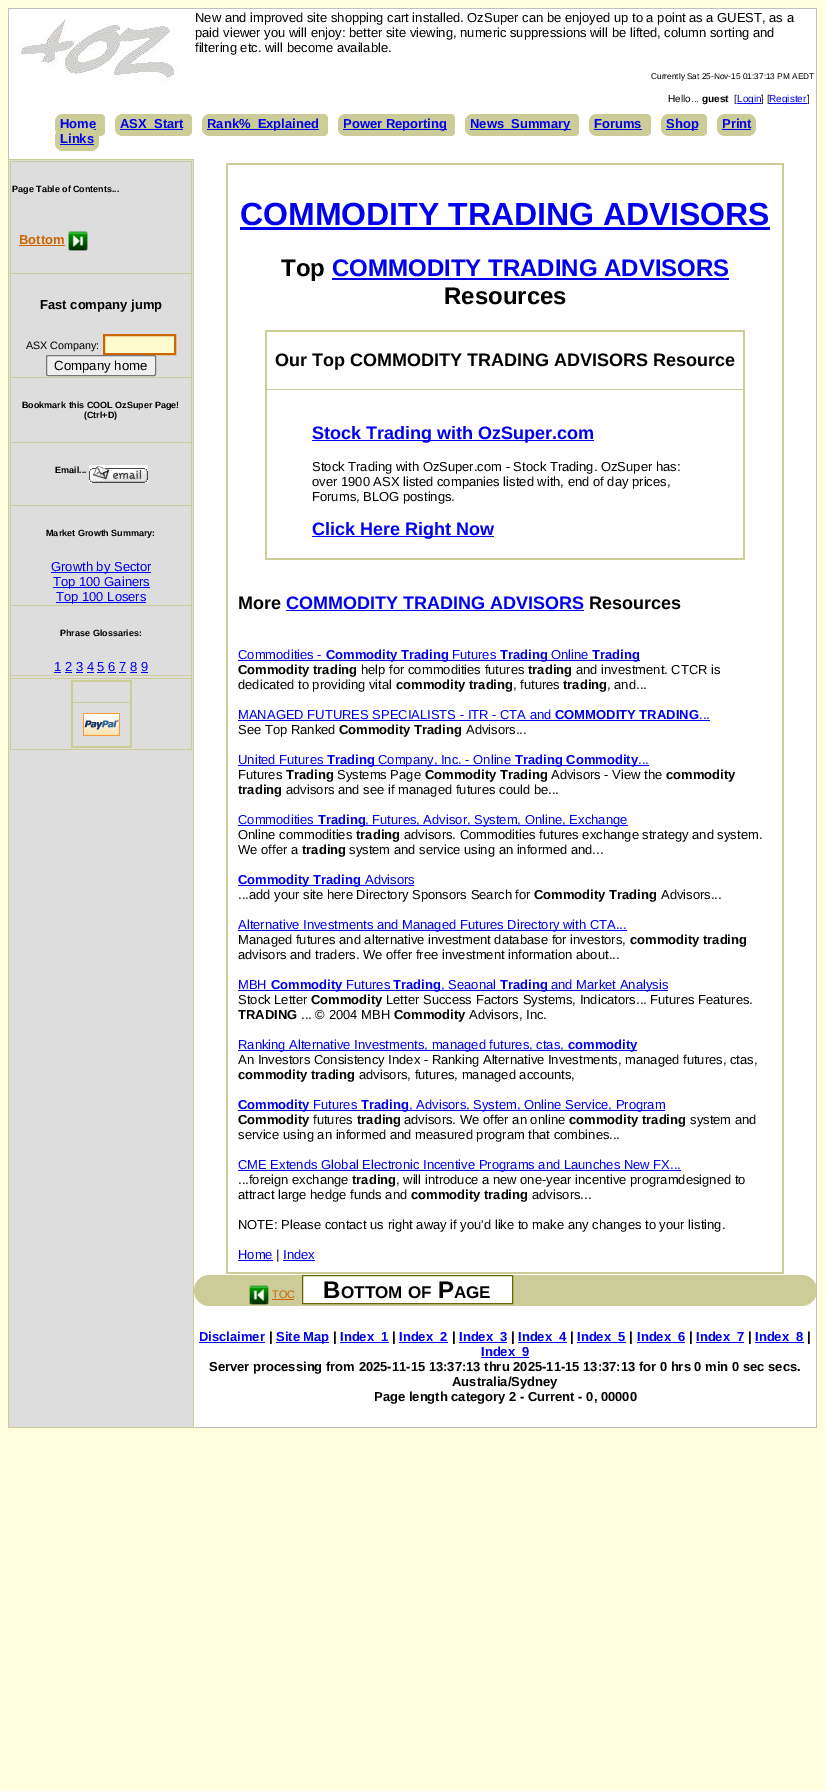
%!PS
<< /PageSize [825 1791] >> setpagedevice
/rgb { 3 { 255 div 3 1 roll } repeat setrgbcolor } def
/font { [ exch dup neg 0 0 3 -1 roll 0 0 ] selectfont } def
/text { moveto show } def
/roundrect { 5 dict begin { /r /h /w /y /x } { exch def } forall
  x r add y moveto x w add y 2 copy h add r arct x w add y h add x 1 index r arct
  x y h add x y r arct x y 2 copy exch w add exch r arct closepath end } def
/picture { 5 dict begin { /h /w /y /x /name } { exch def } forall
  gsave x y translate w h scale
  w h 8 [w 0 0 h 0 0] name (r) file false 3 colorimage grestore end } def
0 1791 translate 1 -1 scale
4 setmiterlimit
255 255 221 rgb
0 0 825 1791 rectfill
255 255 255 rgb
9 9 807 1418 rectfill
192 192 192 rgb
8 8 809 1 rectfill
204 204 153 rgb
194 1275 623 31 15.5 roundrect fill
192 192 192 rgb
816 8 1 1420 rectfill
194 1427 623 1 rectfill
8 8 1 151 rectfill
(img_01.rgb) 18 18 160 64 picture
0 0 238 rgb
737 103 24 1 rectfill
204 204 153 rgb
63 114 moveto 33 0 rlineto 0 22 rlineto -33 0 rlineto -4.5 0 -8 -3.5 -8 -8 rcurveto 0 -6 rlineto 0 -4.5 3.5 -8 8 -8 rcurveto closepath fill
96 114 moveto 4.5 0 rlineto 2.5 0 4.5 2 4.5 4.5 rcurveto 0 13 rlineto 0 2.5 -2 4.5 -4.5 4.5 rcurveto -4.5 0 rlineto closepath fill
0 0 238 rgb
60 129 36 1 rectfill
204 204 153 rgb
123 114 moveto 60 0 rlineto 0 22 rlineto -60 0 rlineto -4.5 0 -8 -3.5 -8 -8 rcurveto 0 -6 rlineto 0 -4.5 3.5 -8 8 -8 rcurveto closepath fill
183 114 moveto 4.5 0 rlineto 2.5 0 4.5 2 4.5 4.5 rcurveto 0 13 rlineto 0 2.5 -2 4.5 -4.5 4.5 rcurveto -4.5 0 rlineto closepath fill
0 0 238 rgb
120 129 63 1 rectfill
204 204 153 rgb
210 114 moveto 109 0 rlineto 0 22 rlineto -109 0 rlineto -4.5 0 -8 -3.5 -8 -8 rcurveto 0 -6 rlineto 0 -4.5 3.5 -8 8 -8 rcurveto closepath fill
319 114 moveto 4.5 0 rlineto 2.5 0 4.5 2 4.5 4.5 rcurveto 0 13 rlineto 0 2.5 -2 4.5 -4.5 4.5 rcurveto -4.5 0 rlineto closepath fill
0 0 238 rgb
207 129 112 1 rectfill
204 204 153 rgb
346 114 moveto 101 0 rlineto 0 22 rlineto -101 0 rlineto -4.5 0 -8 -3.5 -8 -8 rcurveto 0 -6 rlineto 0 -4.5 3.5 -8 8 -8 rcurveto closepath fill
447 114 moveto 4 0 rlineto 2 0 4 2 4 4 rcurveto 0 14 rlineto 0 2 -2 4 -4 4 rcurveto -4 0 rlineto closepath fill
0 0 238 rgb
343 129 104 1 rectfill
204 204 153 rgb
473 114 moveto 98 0 rlineto 0 22 rlineto -98 0 rlineto -4.5 0 -8 -3.5 -8 -8 rcurveto 0 -6 rlineto 0 -4.5 3.5 -8 8 -8 rcurveto closepath fill
571 114 moveto 4 0 rlineto 2 0 4 2 4 4 rcurveto 0 14 rlineto 0 2 -2 4 -4 4 rcurveto -4 0 rlineto closepath fill
0 0 238 rgb
470 129 101 1 rectfill
204 204 153 rgb
597 114 moveto 45 0 rlineto 0 22 rlineto -45 0 rlineto -4.5 0 -8 -3.5 -8 -8 rcurveto 0 -6 rlineto 0 -4.5 3.5 -8 8 -8 rcurveto closepath fill
642 114 moveto 4.5 0 rlineto 2.5 0 4.5 2 4.5 4.5 rcurveto 0 13 rlineto 0 2.5 -2 4.5 -4.5 4.5 rcurveto -4.5 0 rlineto closepath fill
0 0 238 rgb
594 129 48 1 rectfill
204 204 153 rgb
669 114 moveto 29 0 rlineto 0 22 rlineto -29 0 rlineto -4.5 0 -8 -3.5 -8 -8 rcurveto 0 -6 rlineto 0 -4.5 3.5 -8 8 -8 rcurveto closepath fill
698 114 moveto 4.5 0 rlineto 2.5 0 4.5 2 4.5 4.5 rcurveto 0 13 rlineto 0 2.5 -2 4.5 -4.5 4.5 rcurveto -4.5 0 rlineto closepath fill
0 0 238 rgb
666 129 32 1 rectfill
204 204 153 rgb
717 114 39 22 8 roundrect fill
0 0 238 rgb
722 129 29 1 rectfill
204 204 153 rgb
55 129 44 22 8 roundrect fill
0 0 238 rgb
60 144 34 1 rectfill
221 221 221 rgb
9 160 184 1267 rectfill
204 204 153 rgb
8 159 186 1 rectfill
193 159 1 1269 rectfill
8 1427 186 1 rectfill
8 159 1 1269 rectfill
10 161 182 1 rectfill
10 273 182 1 rectfill
10 377 182 1 rectfill
10 442 182 1 rectfill
10 505 182 1 rectfill
10 605 182 1 rectfill
10 675 182 1 rectfill
10 678 182 1 rectfill
191 678 1 72 rectfill
191 675 1 4 rectfill
191 605 1 71 rectfill
191 505 1 101 rectfill
191 442 1 64 rectfill
191 377 1 66 rectfill
191 273 1 105 rectfill
191 161 1 113 rectfill
10 749 182 1 rectfill
10 678 1 72 rectfill
10 675 1 4 rectfill
10 605 1 71 rectfill
10 505 1 101 rectfill
10 442 1 64 rectfill
10 377 1 66 rectfill
10 273 1 105 rectfill
10 161 1 113 rectfill
204 102 0 rgb
19 245 46 1 rectfill
(img_02.rgb) 68 231 20 20 picture
255 251 208 rgb
104 335 moveto 71 0 rlineto 0 19 rlineto -71 0 rlineto closepath gsave fill grestore
204 102 0 rgb
2 setlinewidth
stroke
239 239 239 rgb
46.5 355.5 109 20 1.5 roundrect gsave fill grestore
118 118 118 rgb
1 setlinewidth
stroke
(img_03.rgb) 89 465 59 18 picture
0 0 238 rgb
51 572 100 1 rectfill
53 587 97 1 rectfill
56 602 90 1 rectfill
54 672 7 1 rectfill
65 672 7 1 rectfill
76 672 7 1 rectfill
87 672 7 1 rectfill
97 672 8 1 rectfill
108 672 8 1 rectfill
119 672 7 1 rectfill
130 672 7 1 rectfill
141 672 7 1 rectfill
204 204 153 rgb
71 680 61 2 rectfill
71 702 60 1 rectfill
130 680 2 68 rectfill
71 746 61 2 rectfill
71 680 2 68 rectfill
(img_04.rgb) 83 713 37 23 picture
226 163 558 2 rectfill
782 163 2 1111 rectfill
226 1272 558 2 rectfill
226 163 2 1111 rectfill
0 0 238 rgb
240 227 530 3 rectfill
332 278 397 2 rectfill
204 204 153 rgb
265 330 480 2 rectfill
265 389 480 1 rectfill
743 330 2 230 rectfill
265 558 480 2 rectfill
265 330 2 230 rectfill
0 0 238 rgb
312 440 282 1 rectfill
312 536 182 1 rectfill
286 610 298 1 rectfill
238 660 402 1 rectfill
238 720 472 1 rectfill
238 765 411 1 rectfill
238 825 390 1 rectfill
238 885 176 1 rectfill
238 930 389 1 rectfill
238 990 104 1 rectfill
342 990 326 1 rectfill
238 1050 399 1 rectfill
238 1110 427 1 rectfill
238 1170 443 1 rectfill
238 1260 35 1 rectfill
283 1260 32 1 rectfill
(img_05.rgb) 249 1285 20 20 picture
204 102 0 rgb
272 1299 22 1 rectfill
255 255 255 rgb
302.5 1275.5 moveto 210 0 rlineto 0 28 rlineto -210 0 rlineto closepath gsave fill grestore
102 102 0 rgb
stroke
0 0 238 rgb
199 1342 66 1 rectfill
276 1342 53 1 rectfill
340 1342 49 1 rectfill
399 1342 49 1 rectfill
459 1342 48 1 rectfill
518 1342 49 1 rectfill
577 1342 49 1 rectfill
637 1342 48 1 rectfill
696 1342 48 1 rectfill
755 1342 49 1 rectfill
481 1357 48 1 rectfill
/LiberationSans-Regular 13 font
0 0 0 rgb
(New and improved site shopping cart installed. OzSuper can be enjoyed up to a point as a GUEST, as a) 195 22 text
(paid viewer you will enjoy: better site viewing, numeric suppressions will be lifted, column sorting and) 195 37 text
(filtering etc. will become available.) 195 52 text
/LiberationSans-Regular 8.3 font
(Currently Sat 25-Nov-15 01:37:13 PM AEDT) 651 79 text
/LiberationSans-Regular 10 font
(Hello...) 668 102 text
/LiberationSans-Bold 10 font
(guest) 702 102 text
/LiberationSans-Regular 10 font
([) 734 102 text
0 0 238 rgb
(Login) 737 102 text
0 0 0 rgb
(] [) 761 102 text
0 0 238 rgb
769 103 38 1 rectfill
(Register) 769 102 text
0 0 0 rgb
(]) 807 102 text
/LiberationSans-Bold 13 font
0 0 238 rgb
(Home) 60 128 text
(ASX_Start) 120 128 text
(Rank%_Explained) 207 128 text
(Power Reporting) 343 128 text
(News_Summary) 470 128 text
(Forums) 594 128 text
(Shop) 666 128 text
(Print) 722 128 text
(Links) 60 143 text
/LiberationSans-Bold 9 font
0 0 0 rgb
(Page Table of Contents...) 12 192 text
/LiberationSans-Bold 13 font
204 102 0 rgb
(Bottom) 19 244 text
0 0 0 rgb
(Fast company jump) 40 309 text
/LiberationSans-Regular 10.75 font
(ASX Company:) 26 349 text
/LiberationSans-Regular 13.25 font
(Company home) 54 370 text
/LiberationSans-Bold 9 font
(Bookmark this COOL OzSuper Page!) 22 408 text
(\(Ctrl+D\)) 84 418 text
(Email...) 55 473 text
(Market Growth Summary:) 46 536 text
/LiberationSans-Regular 13 font
0 0 238 rgb
(Growth by Sector) 51 571 text
(Top 100 Gainers) 53 586 text
(Top 100 Losers) 56 601 text
/LiberationSans-Bold 9 font
0 0 0 rgb
(Phrase Glossaries:) 60 636 text
/LiberationSans-Regular 13 font
0 0 238 rgb
(1 2 3 4 5 6 7 8 9) 54 671 text
/LiberationSans-Bold 32 font
(COMMODITY TRADING ADVISORS) 240 225 text
/LiberationSans-Bold 24 font
0 0 0 rgb
(Top) 281 276 text
0 0 238 rgb
(COMMODITY TRADING ADVISORS) 332 276 text
0 0 0 rgb
(Resources) 444 304 text
/LiberationSans-Bold 18 font
(Our Top COMMODITY TRADING ADVISORS Resource) 275 366 text
0 0 238 rgb
(Stock Trading with OzSuper.com) 312 439 text
/LiberationSans-Regular 13 font
0 0 0 rgb
(Stock Trading with OzSuper.com - Stock Trading. OzSuper has:) 312 471 text
(over 1900 ASX listed companies listed with, end of day prices,) 312 486 text
(Forums, BLOG postings.) 312 501 text
/LiberationSans-Bold 18 font
0 0 238 rgb
(Click Here Right Now) 312 535 text
0 0 0 rgb
(More) 238 609 text
0 0 238 rgb
(COMMODITY TRADING ADVISORS) 286 609 text
0 0 0 rgb
(Resources) 589 609 text
/LiberationSans-Regular 13 font
0 0 238 rgb
(Commodities -) 238 659 text
/LiberationSans-Bold 13 font
(Commodity Trading) 326 659 text
/LiberationSans-Regular 13 font
(Futures) 452 659 text
/LiberationSans-Bold 13 font
(Trading) 500 659 text
/LiberationSans-Regular 13 font
(Online) 551 659 text
/LiberationSans-Bold 13 font
(Trading) 592 659 text
0 0 0 rgb
(Commodity trading) 238 674 text
/LiberationSans-Regular 13 font
(help for commodities futures) 361 674 text
/LiberationSans-Bold 13 font
(trading) 528 674 text
/LiberationSans-Regular 13 font
(and investment. CTCR is) 576 674 text
(dedicated to providing vital) 238 689 text
/LiberationSans-Bold 13 font
(commodity trading) 396 689 text
/LiberationSans-Regular 13 font
(, futures) 513 689 text
/LiberationSans-Bold 13 font
(trading) 563 689 text
/LiberationSans-Regular 13 font
(, and...) 607 689 text
0 0 238 rgb
(MANAGED FUTURES SPECIALISTS - ITR - CTA and) 238 719 text
/LiberationSans-Bold 13 font
(COMMODITY TRADING) 555 719 text
/LiberationSans-Regular 13 font
(...) 699 719 text
0 0 0 rgb
(See Top Ranked) 238 734 text
/LiberationSans-Bold 13 font
(Commodity Trading) 339 734 text
/LiberationSans-Regular 13 font
(Advisors...) 466 734 text
0 0 238 rgb
(United Futures) 238 764 text
/LiberationSans-Bold 13 font
(Trading) 327 764 text
/LiberationSans-Regular 13 font
(Company, Inc. - Online) 378 764 text
/LiberationSans-Bold 13 font
(Trading Commodity) 515 764 text
/LiberationSans-Regular 13 font
(...) 638 764 text
0 0 0 rgb
(Futures) 238 779 text
/LiberationSans-Bold 13 font
(Trading) 286 779 text
/LiberationSans-Regular 13 font
(Systems Page) 337 779 text
/LiberationSans-Bold 13 font
(Commodity Trading) 425 779 text
/LiberationSans-Regular 13 font
(Advisors - View the) 551 779 text
/LiberationSans-Bold 13 font
(commodity) 666 779 text
(trading) 238 794 text
/LiberationSans-Regular 13 font
(advisors and see if managed futures could be...) 286 794 text
0 0 238 rgb
(Commodities) 238 824 text
/LiberationSans-Bold 13 font
(Trading) 318 824 text
/LiberationSans-Regular 13 font
(, Futures, Advisor, System, Online, Exchange) 365 824 text
0 0 0 rgb
(Online commodities) 238 839 text
/LiberationSans-Bold 13 font
(trading) 356 839 text
/LiberationSans-Regular 13 font
(advisors. Commodities futures exchange strategy and system.) 404 839 text
(We offer a) 238 854 text
/LiberationSans-Bold 13 font
(trading) 302 854 text
/LiberationSans-Regular 13 font
(system and service using an informed and...) 349 854 text
/LiberationSans-Bold 13 font
0 0 238 rgb
(Commodity Trading) 238 884 text
/LiberationSans-Regular 13 font
(Advisors) 365 884 text
0 0 0 rgb
(...add your site here Directory Sponsors Search for) 238 899 text
/LiberationSans-Bold 13 font
(Commodity Trading) 534 899 text
/LiberationSans-Regular 13 font
(Advisors...) 661 899 text
0 0 238 rgb
(Alternative Investments and Managed Futures Directory with CTA...) 238 929 text
0 0 0 rgb
(Managed futures and alternative investment database for investors,) 238 944 text
/LiberationSans-Bold 13 font
(commodity trading) 630 944 text
/LiberationSans-Regular 13 font
(advisors and traders. We offer free investment information about...) 238 959 text
0 0 238 rgb
(MBH) 238 989 text
/LiberationSans-Bold 13 font
(Commodity) 271 989 text
/LiberationSans-Regular 13 font
(Futures) 346 989 text
/LiberationSans-Bold 13 font
(Trading) 393 989 text
/LiberationSans-Regular 13 font
(, Seaonal) 441 989 text
/LiberationSans-Bold 13 font
(Trading) 500 989 text
/LiberationSans-Regular 13 font
(and Market Analysis) 551 989 text
0 0 0 rgb
(Stock Letter) 238 1004 text
/LiberationSans-Bold 13 font
(Commodity) 311 1004 text
/LiberationSans-Regular 13 font
(Letter Success Factors Systems, Indicators... Futures Features.) 386 1004 text
/LiberationSans-Bold 13 font
(TRADING) 238 1019 text
/LiberationSans-Regular 13 font
(... © 2004 MBH) 301 1019 text
/LiberationSans-Bold 13 font
(Commodity) 394 1019 text
/LiberationSans-Regular 13 font
(Advisors, Inc.) 469 1019 text
0 0 238 rgb
(Ranking Alternative Investments, managed futures, ctas,) 238 1049 text
/LiberationSans-Bold 13 font
(commodity) 568 1049 text
/LiberationSans-Regular 13 font
0 0 0 rgb
(An Investors Consistency Index - Ranking Alternative Investments, managed futures, ctas,) 238 1064 text
/LiberationSans-Bold 13 font
(commodity trading) 238 1079 text
/LiberationSans-Regular 13 font
(advisors, futures, managed accounts,) 359 1079 text
/LiberationSans-Bold 13 font
0 0 238 rgb
(Commodity) 238 1109 text
/LiberationSans-Regular 13 font
(Futures) 313 1109 text
/LiberationSans-Bold 13 font
(Trading) 361 1109 text
/LiberationSans-Regular 13 font
(, Advisors, System, Online Service, Program) 409 1109 text
/LiberationSans-Bold 13 font
0 0 0 rgb
(Commodity) 238 1124 text
/LiberationSans-Regular 13 font
(futures) 313 1124 text
/LiberationSans-Bold 13 font
(trading) 357 1124 text
/LiberationSans-Regular 13 font
(advisors. We offer an online) 404 1124 text
/LiberationSans-Bold 13 font
(commodity trading) 569 1124 text
/LiberationSans-Regular 13 font
(system and) 690 1124 text
(service using an informed and measured program that combines...) 238 1139 text
0 0 238 rgb
(CME Extends Global Electronic Incentive Programs and Launches New FX...) 238 1169 text
0 0 0 rgb
(...foreign exchange) 238 1184 text
/LiberationSans-Bold 13 font
(trading) 352 1184 text
/LiberationSans-Regular 13 font
(, will introduce a new one-year incentive programdesigned to) 396 1184 text
(attract large hedge funds and) 238 1199 text
/LiberationSans-Bold 13 font
(commodity trading) 411 1199 text
/LiberationSans-Regular 13 font
(advisors...) 532 1199 text
(NOTE: Please contact us right away if you'd like to make any changes to your listing.) 238 1229 text
0 0 238 rgb
(Home) 238 1259 text
0 0 0 rgb
(|) 276 1259 text
0 0 238 rgb
(Index) 283 1259 text
/LiberationSans-Regular 11 font
204 102 0 rgb
(TOC) 272 1298 text
/LiberationSans-Bold 24 font
0 0 0 rgb
(B) 323 1298 text
/LiberationSans-Bold 17 font
(OTTOM) 341 1298 text
(OF) 408 1298 text
/LiberationSans-Bold 24 font
(P) 438 1298 text
/LiberationSans-Bold 17 font
(AGE) 454 1298 text
/LiberationSans-Bold 13 font
0 0 238 rgb
(Disclaimer) 199 1341 text
0 0 0 rgb
(|) 269 1341 text
0 0 238 rgb
(Site Map) 276 1341 text
0 0 0 rgb
(|) 333 1341 text
0 0 238 rgb
(Index_1) 340 1341 text
0 0 0 rgb
(|) 392 1341 text
0 0 238 rgb
(Index_2) 399 1341 text
0 0 0 rgb
(|) 452 1341 text
0 0 238 rgb
(Index_3) 459 1341 text
0 0 0 rgb
(|) 511 1341 text
0 0 238 rgb
(Index_4) 518 1341 text
0 0 0 rgb
(|) 570 1341 text
0 0 238 rgb
(Index_5) 577 1341 text
0 0 0 rgb
(|) 629 1341 text
0 0 238 rgb
(Index_6) 637 1341 text
0 0 0 rgb
(|) 689 1341 text
0 0 238 rgb
(Index_7) 696 1341 text
0 0 0 rgb
(|) 748 1341 text
0 0 238 rgb
(Index_8) 755 1341 text
0 0 0 rgb
(|) 807 1341 text
0 0 238 rgb
(Index_9) 481 1356 text
0 0 0 rgb
(Server processing from 2025-11-15 13:37:13 thru 2025-11-15 13:37:13 for 0 hrs 0 min 0 sec secs.) 209 1371 text
(Australia/Sydney) 452 1386 text
(Page length category 2 - Current - 0, 00000) 374 1401 text
showpage
